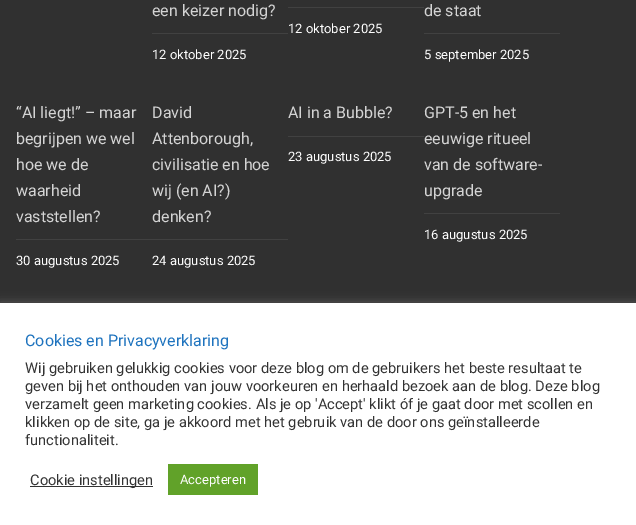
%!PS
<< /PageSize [636 525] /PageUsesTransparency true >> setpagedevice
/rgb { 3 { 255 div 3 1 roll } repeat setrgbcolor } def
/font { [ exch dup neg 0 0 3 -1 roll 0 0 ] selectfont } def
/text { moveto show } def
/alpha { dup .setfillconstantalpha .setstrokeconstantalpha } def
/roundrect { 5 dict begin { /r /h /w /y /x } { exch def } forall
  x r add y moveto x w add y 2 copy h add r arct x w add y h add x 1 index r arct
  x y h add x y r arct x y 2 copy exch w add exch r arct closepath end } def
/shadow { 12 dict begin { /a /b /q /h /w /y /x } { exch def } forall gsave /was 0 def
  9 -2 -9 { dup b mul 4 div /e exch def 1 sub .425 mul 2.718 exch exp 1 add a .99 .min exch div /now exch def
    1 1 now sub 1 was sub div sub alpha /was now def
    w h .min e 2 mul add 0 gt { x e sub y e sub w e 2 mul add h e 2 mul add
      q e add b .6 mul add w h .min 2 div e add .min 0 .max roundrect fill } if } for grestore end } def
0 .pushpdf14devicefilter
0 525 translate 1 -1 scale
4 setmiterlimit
48 48 48 rgb
0 0 636 525 rectfill
65 65 65 rgb
152 33 136 1 rectfill
288 7 136 1 rectfill
424 33 136 1 rectfill
16 239 272 1 rectfill
288 136 136 1 rectfill
424 213 136 1 rectfill
172 171 171 rgb
0 302 636 222 0 5 0.3 shadow
255 255 255 rgb
0 303 636 222 rectfill
51 51 51 rgb
30 486 123 1 rectfill
97 162 41 rgb
168 464 90 31 rectfill
/Roboto-Regular 16 font
212 212 212 rgb
(een keizer nodig?) 152 16 text
/Roboto-Regular 13 font
253 253 253 rgb
(12 oktober 2025) 152 59 text
(12 oktober 2025) 288 33 text
/Roboto-Regular 16 font
212 212 212 rgb
(de staat) 424 16 text
/Roboto-Regular 13 font
253 253 253 rgb
(5 september 2025) 424 59 text
/Roboto-Regular 16 font
212 212 212 rgb
(“AI liegt!” – maar) 16 118 text
(begrijpen we wel) 16 144 text
(hoe we de) 16 170 text
(waarheid) 16 196 text
(vaststellen?) 16 222 text
/Roboto-Regular 13 font
253 253 253 rgb
(30 augustus 2025) 16 265 text
/Roboto-Regular 16 font
212 212 212 rgb
(David) 152 118 text
(Attenborough,) 152 144 text
(civilisatie en hoe) 152 170 text
(wij \(en AI?\)) 152 196 text
(denken?) 152 222 text
/Roboto-Regular 13 font
253 253 253 rgb
(24 augustus 2025) 152 265 text
/Roboto-Regular 16 font
212 212 212 rgb
(AI in a Bubble?) 288 118 text
/Roboto-Regular 13 font
253 253 253 rgb
(23 augustus 2025) 288 161 text
/Roboto-Regular 16 font
212 212 212 rgb
(GPT-5 en het) 424 118 text
(eeuwige ritueel) 424 144 text
(van de software-) 424 170 text
(upgrade) 424 196 text
/Roboto-Regular 13 font
253 253 253 rgb
(16 augustus 2025) 424 239 text
/Roboto-Regular 16 font
30 115 190 rgb
(Cookies en Privacyverklaring) 25 346 text
/Roboto-Regular 14.65 font
51 51 51 rgb
(Wij gebruiken gelukkig cookies voor deze blog om de gebruikers het beste resultaat te) 25 373 text
(geven bij het onthouden van jouw voorkeuren en herhaald bezoek aan de blog. Deze blog) 25 391 text
(verzamelt geen marketing cookies. Als je op 'Accept' klikt óf je gaat door met scollen en) 25 409 text
(klikken op de site, ga je akkoord met het gebruik van de door ons geïnstalleerde) 25 427 text
(functionaliteit.) 25 445 text
(Cookie instellingen) 30 485 text
/Roboto-Regular 13 font
253 253 253 rgb
(Accepteren) 180 484 text
.poppdf14devicefilter showpage
